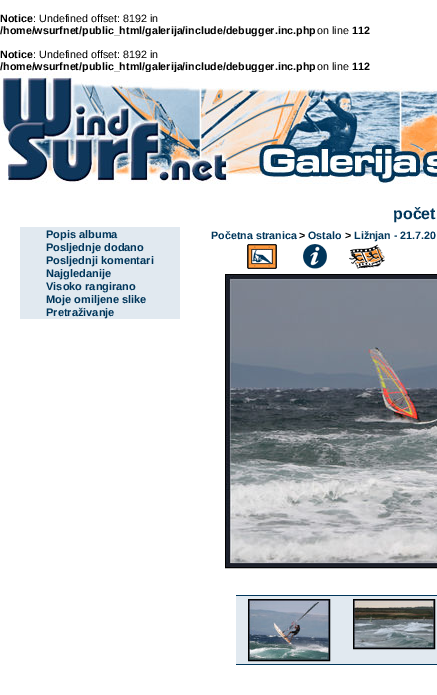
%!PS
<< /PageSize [437 695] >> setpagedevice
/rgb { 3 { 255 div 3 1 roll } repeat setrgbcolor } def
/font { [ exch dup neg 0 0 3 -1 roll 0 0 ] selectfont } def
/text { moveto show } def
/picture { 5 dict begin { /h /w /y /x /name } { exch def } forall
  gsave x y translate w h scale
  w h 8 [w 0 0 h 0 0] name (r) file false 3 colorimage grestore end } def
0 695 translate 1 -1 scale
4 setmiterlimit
255 255 255 rgb
0 0 437 695 rectfill
(img_03.rgb) 400 88 37 96 picture
(img_04.rgb) 247 244 30 25 picture
(img_05.rgb) 303 244 24 25 picture
(img_06.rgb) 349 244 36 25 picture
0 0 0 rgb
225.5 274.5 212 293 rectstroke
(img_07.rgb) 226 275 211 292 picture
225 233 240 rgb
236 596 201 68 rectfill
0 54 91 rgb
236 595 201 1 rectfill
236 664 201 1 rectfill
0 0 0 rgb
248.5 599.5 81 61 rectstroke
(img_08.rgb) 249 600 80 60 picture
353.5 599.5 81 49 rectstroke
(img_09.rgb) 354 600 80 48 picture
225 233 240 rgb
20 227 160 92 rectfill
/LiberationSans-Bold 10.7 font
0 0 0 rgb
(Notice) 0 22 text
/LiberationSans-Regular 10.7 font
(: Undefined offset: 8192 in) 33 22 text
/LiberationSans-Bold 10.7 font
(/home/wsurfnet/public_html/galerija/include/debugger.inc.php) 0 34 text
/LiberationSans-Regular 10.7 font
(on line) 317 34 text
/LiberationSans-Bold 10.7 font
(112) 352 34 text
(Notice) 0 58 text
/LiberationSans-Regular 10.7 font
(: Undefined offset: 8192 in) 33 58 text
/LiberationSans-Bold 10.7 font
(/home/wsurfnet/public_html/galerija/include/debugger.inc.php) 0 70 text
/LiberationSans-Regular 10.7 font
(on line) 317 70 text
/LiberationSans-Bold 10.7 font
(112) 352 70 text
(img_01.rgb) 0 72 200 112 picture
(img_02.rgb) 200 72 200 112 picture
/LiberationSans-Bold 16 font
0 54 91 rgb
(počet) 393 219 text
/LiberationSans-Bold 10.7 font
(Početna stranica) 211 239 text
0 0 0 rgb
(>) 299 239 text
0 54 91 rgb
(Ostalo) 308 239 text
0 0 0 rgb
(>) 345 239 text
0 54 91 rgb
(Ližnjan - 21.7.20) 354 239 text
/LiberationSans-Bold 11 font
(Popis albuma) 46 238 text
(Posljednje dodano) 46 251 text
(Posljednji komentari) 46 264 text
(Najgledanije) 46 277 text
(Visoko rangirano) 46 290 text
(Moje omiljene slike) 46 303 text
(Pretraživanje) 46 316 text
showpage
